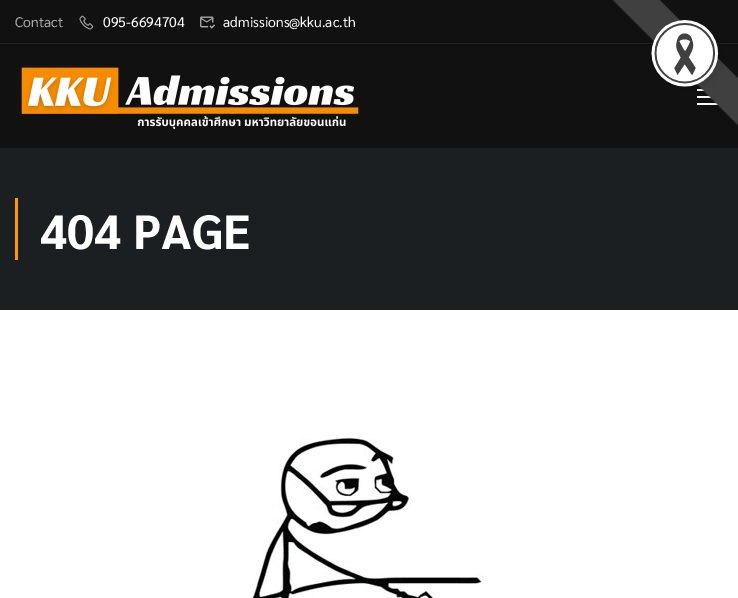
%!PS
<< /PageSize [738 598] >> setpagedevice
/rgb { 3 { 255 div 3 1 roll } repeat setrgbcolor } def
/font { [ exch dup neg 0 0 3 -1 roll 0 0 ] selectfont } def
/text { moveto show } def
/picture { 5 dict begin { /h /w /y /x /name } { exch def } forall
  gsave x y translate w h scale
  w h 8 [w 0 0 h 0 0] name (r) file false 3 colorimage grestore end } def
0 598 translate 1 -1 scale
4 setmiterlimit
255 255 255 rgb
0 0 738 598 rectfill
17 17 17 rgb
0 0 738 148 rectfill
(img_01.rgb) 79 15 15 15 picture
(img_02.rgb) 200 16 15 13 picture
33 33 33 rgb
0 43 738 1 rectfill
(img_03.rgb) 21 67 338 63 picture
255 255 255 rgb
697 89 7 2 rectfill
697 96 22 2 rectfill
697 103 22 2 rectfill
28 31 34 rgb
0 148 738 162 rectfill
255 152 0 rgb
15 198 3 62 rectfill
(img_04.rgb) 252 437 232 161 picture
(img_05.rgb) 612 0 126 126 picture
/Sarabun-Regular 14 font
171 171 171 rgb
(Contact) 15 27 text
255 255 255 rgb
(095-6694704) 103 27 text
(admissions@kku.ac.th) 223 27 text
/Sarabun-Bold 48 font
(404 PAGE) 40 249 text
showpage
